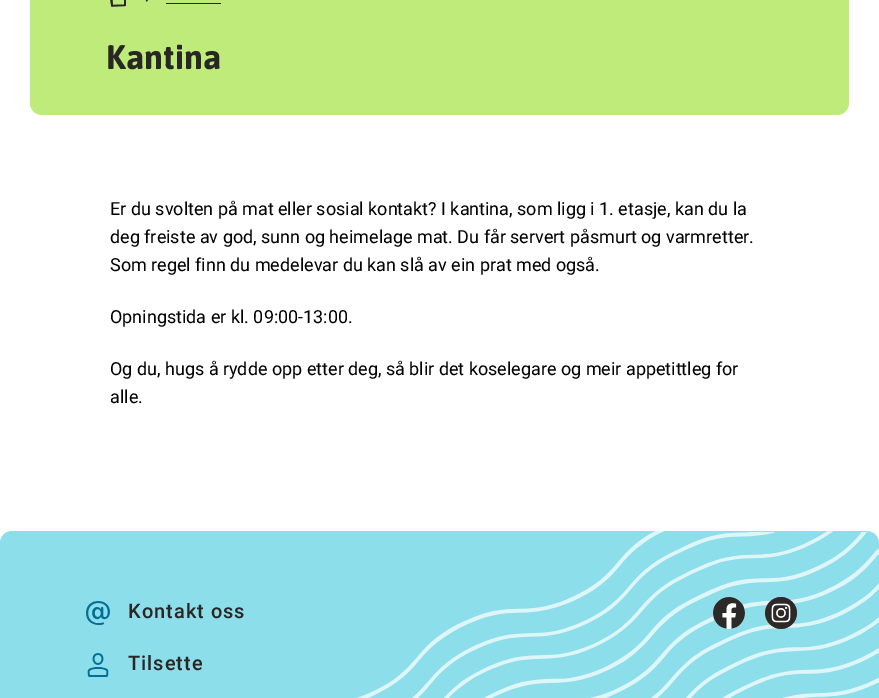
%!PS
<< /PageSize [879 698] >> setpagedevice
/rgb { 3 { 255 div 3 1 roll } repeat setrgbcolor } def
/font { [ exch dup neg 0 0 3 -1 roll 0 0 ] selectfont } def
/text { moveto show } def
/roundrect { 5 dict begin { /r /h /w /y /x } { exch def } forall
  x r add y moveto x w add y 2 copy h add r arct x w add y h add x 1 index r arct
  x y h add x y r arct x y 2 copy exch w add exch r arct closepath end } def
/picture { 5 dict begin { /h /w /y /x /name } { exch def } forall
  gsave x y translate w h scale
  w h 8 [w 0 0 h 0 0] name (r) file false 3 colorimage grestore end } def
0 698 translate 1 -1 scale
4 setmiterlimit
255 255 255 rgb
0 0 879 698 rectfill
190 235 122 rgb
30 -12 819 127 12 roundrect fill
(img_01.rgb) 110 0 16 7 picture
(img_02.rgb) 145 0 4 2 picture
41 39 38 rgb
166 3 55 1 rectfill
141 222 235 rgb
12 531 moveto 855 0 rlineto 6.5 0 12 5.5 12 12 rcurveto 0 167 rlineto -879 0 rlineto 0 -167 rlineto 0 -6.5 5.5 -12 12 -12 rcurveto closepath fill
(img_03.rgb) 86 601 24 24 picture
(img_04.rgb) 87 653 22 24 picture
(img_07.rgb) 357 531 522 167 picture
(img_05.rgb) 713 597 32 32 picture
(img_06.rgb) 765 597 32 32 picture
/Asap-Bold 34 font
41 39 38 rgb
(Kantina) 106 69 text
/Roboto-Regular 18 font
0 0 0 rgb
(Er du svolten på mat eller sosial kontakt? I kantina, som ligg i 1. etasje, kan du la) 110 215 text
(deg freiste av god, sunn og heimelage mat. Du får servert påsmurt og varmretter.) 110 243 text
(Som regel finn du medelevar du kan slå av ein prat med også.) 110 271 text
(Opningstida er kl. 09:00-13:00.) 110 323 text
(Og du, hugs å rydde opp etter deg, så blir det koselegare og meir appetittleg for) 110 375 text
(alle.) 110 403 text
/Roboto-Medium 20 font
41 39 38 rgb
128 618 moveto 1 0 (Kontakt oss) ashow
128 670 moveto 1 0 (Tilsette) ashow
showpage
